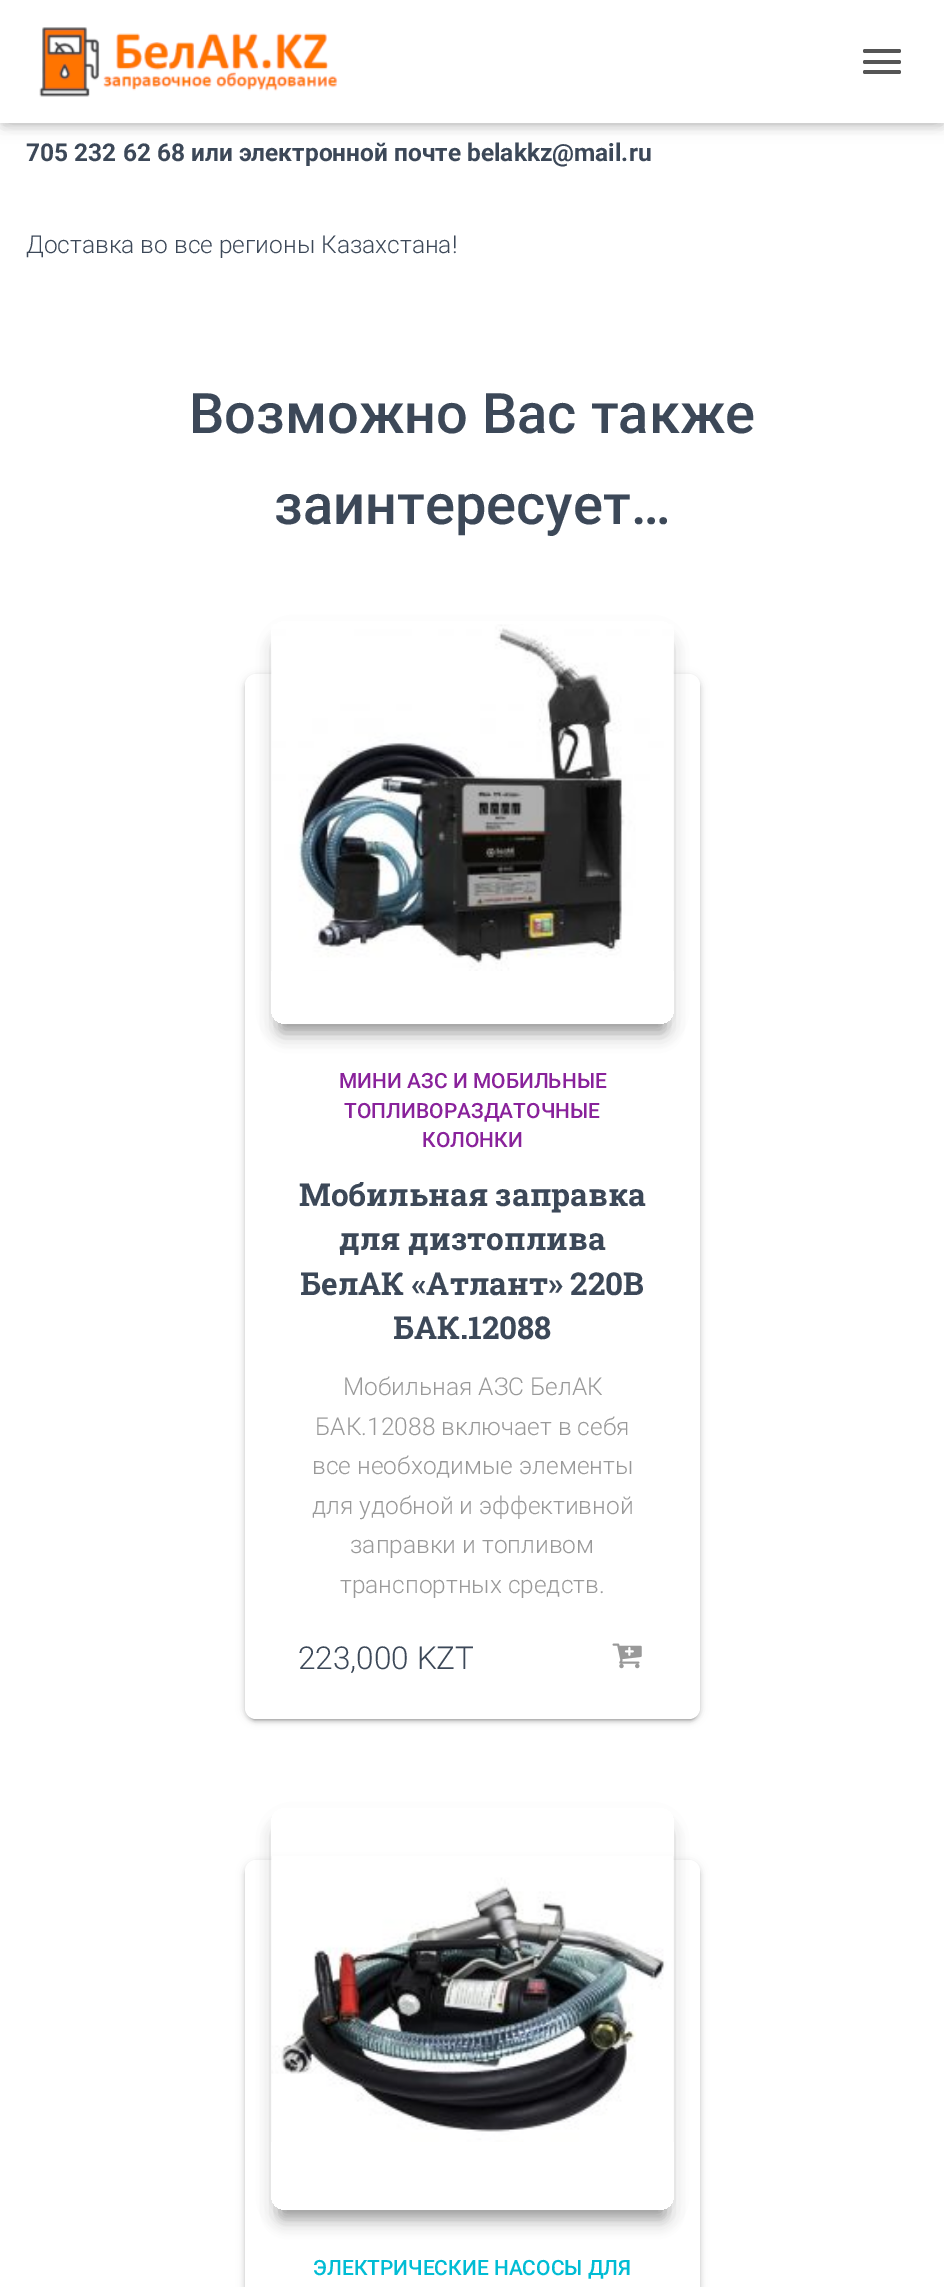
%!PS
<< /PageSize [944 2287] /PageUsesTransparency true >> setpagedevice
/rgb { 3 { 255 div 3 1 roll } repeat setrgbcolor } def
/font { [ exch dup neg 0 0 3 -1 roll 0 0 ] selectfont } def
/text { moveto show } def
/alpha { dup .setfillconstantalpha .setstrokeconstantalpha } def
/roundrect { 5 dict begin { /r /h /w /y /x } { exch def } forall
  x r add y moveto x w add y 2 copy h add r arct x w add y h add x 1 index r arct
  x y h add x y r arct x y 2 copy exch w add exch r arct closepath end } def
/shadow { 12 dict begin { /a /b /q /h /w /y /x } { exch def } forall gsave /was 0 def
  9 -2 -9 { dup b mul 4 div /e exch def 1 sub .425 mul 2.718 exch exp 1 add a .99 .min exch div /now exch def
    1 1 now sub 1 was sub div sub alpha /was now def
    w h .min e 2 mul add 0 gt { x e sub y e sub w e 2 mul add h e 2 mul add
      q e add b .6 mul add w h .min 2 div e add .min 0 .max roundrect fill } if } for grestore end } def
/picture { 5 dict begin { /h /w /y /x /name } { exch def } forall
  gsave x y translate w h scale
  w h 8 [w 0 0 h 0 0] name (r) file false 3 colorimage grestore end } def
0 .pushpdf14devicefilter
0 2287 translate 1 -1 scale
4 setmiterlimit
255 255 255 rgb
0 0 944 2287 rectfill
0 0 0 rgb
4 11 938 115 0 4.5 0.1 shadow
0 2 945 122 0 9 0.12 shadow
11 12 924 102 0 9 0.42 shadow
255 255 255 rgb
0 0 944 123 rectfill
(img_01.rgb) 39 27 299 70 picture
85 85 85 rgb
863 49 38 4 2 roundrect fill
863 60 38 4 2 roundrect fill
863 70 38 4 2 roundrect fill
0 0 0 rgb
245 676 455 1044 11 4.5 0.12 shadow
249 683 448 1037 7 1 0.2 shadow
245 677 455 1045 11 2 0.14 shadow
255 255 255 rgb
245 674 455 1045 11 roundrect fill
gsave
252 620 moveto 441 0 rlineto 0 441 rlineto -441 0 rlineto closepath 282 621 moveto 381 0 rlineto 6 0 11 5 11 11 rcurveto 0 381 rlineto 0 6 -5 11 -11 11 rcurveto -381 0 rlineto -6 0 -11 -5 -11 -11 rcurveto 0 -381 rlineto 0 -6 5 -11 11 -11 rcurveto closepath eoclip newpath
0 0 0 rgb
280 648 385 385 2 9 0.2 shadow
grestore
gsave
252 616 moveto 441 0 rlineto 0 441 rlineto -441 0 rlineto closepath 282 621 moveto 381 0 rlineto 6 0 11 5 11 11 rcurveto 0 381 rlineto 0 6 -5 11 -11 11 rcurveto -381 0 rlineto -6 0 -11 -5 -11 -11 rcurveto 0 -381 rlineto 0 -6 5 -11 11 -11 rcurveto closepath eoclip newpath
0 0 0 rgb
280 644 385 385 2 9 0.2 shadow
grestore
gsave
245 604 moveto 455 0 rlineto 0 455 rlineto -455 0 rlineto closepath 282 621 moveto 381 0 rlineto 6 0 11 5 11 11 rcurveto 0 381 rlineto 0 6 -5 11 -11 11 rcurveto -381 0 rlineto -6 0 -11 -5 -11 -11 rcurveto 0 -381 rlineto 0 -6 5 -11 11 -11 rcurveto closepath eoclip newpath
0 0 0 rgb
285 644 375 375 0 13 0.24 shadow
grestore
(img_02.rgb) 271 624 403 347 picture
(img_03.rgb) 612 1643 30 26 picture
0 0 0 rgb
245 1862 455 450 11 4.5 0.12 shadow
245 1864 455 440 11 2 0.14 shadow
255 255 255 rgb
245 1860 455 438 11 roundrect fill
gsave
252 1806 moveto 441 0 rlineto 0 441 rlineto -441 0 rlineto closepath 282 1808 moveto 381 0 rlineto 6 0 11 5 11 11 rcurveto 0 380 rlineto 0 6 -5 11 -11 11 rcurveto -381 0 rlineto -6 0 -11 -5 -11 -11 rcurveto 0 -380 rlineto 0 -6 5 -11 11 -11 rcurveto closepath eoclip newpath
0 0 0 rgb
280 1834 385 385 2 9 0.2 shadow
grestore
gsave
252 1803 moveto 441 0 rlineto 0 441 rlineto -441 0 rlineto closepath 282 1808 moveto 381 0 rlineto 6 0 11 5 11 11 rcurveto 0 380 rlineto 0 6 -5 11 -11 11 rcurveto -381 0 rlineto -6 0 -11 -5 -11 -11 rcurveto 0 -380 rlineto 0 -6 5 -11 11 -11 rcurveto closepath eoclip newpath
0 0 0 rgb
280 1831 385 385 2 9 0.2 shadow
grestore
gsave
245 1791 moveto 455 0 rlineto 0 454 rlineto -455 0 rlineto closepath 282 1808 moveto 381 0 rlineto 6 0 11 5 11 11 rcurveto 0 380 rlineto 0 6 -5 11 -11 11 rcurveto -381 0 rlineto -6 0 -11 -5 -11 -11 rcurveto 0 -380 rlineto 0 -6 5 -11 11 -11 rcurveto closepath eoclip newpath
0 0 0 rgb
285 1831 375 374 0 13 0.24 shadow
grestore
(img_04.rgb) 271 1856 403 286 picture
/Roboto-Bold 24.5 font
60 72 88 rgb
(705 232 62 68 или электронной почте belakkz@mail.ru) 26 161 text
/Roboto-Light 24.5 font
(Доставка во все регионы Казахстана!) 26 253 text
/Roboto-Medium 56 font
(Возможно Вас также) 189 433 text
(заинтересует…) 274 524 text
/Roboto-Medium 21 font
137 34 155 rgb
(МИНИ АЗС И МОБИЛЬНЫЕ) 339 1088 text
(ТОПЛИВОРАЗДАТОЧНЫЕ) 344 1118 text
(КОЛОНКИ) 422 1147 text
/RobotoSlab-Bold 31.5 font
60 72 88 rgb
(Мобильная заправка) 299 1206 text
(для дизтоплива) 339 1250 text
(БелАК «Атлант» 220В) 300 1295 text
(БАК.12088) 393 1339 text
/Roboto-Light 24.5 font
153 153 153 rgb
(Мобильная АЗС БелАК) 343 1395 text
(БАК.12088 включает в себя) 315 1435 text
(все необходимые элементы) 312 1474 text
(для удобной и эффективной) 312 1514 text
(заправки и топливом) 350 1553 text
(транспортных средств.) 340 1593 text
/Roboto-Light 31.5 font
60 72 88 rgb
(223,000 KZT) 298 1669 text
/Roboto-Medium 21 font
0 188 212 rgb
(ЭЛЕКТРИЧЕСКИЕ НАСОСЫ ДЛЯ) 313 2275 text
.poppdf14devicefilter showpage
